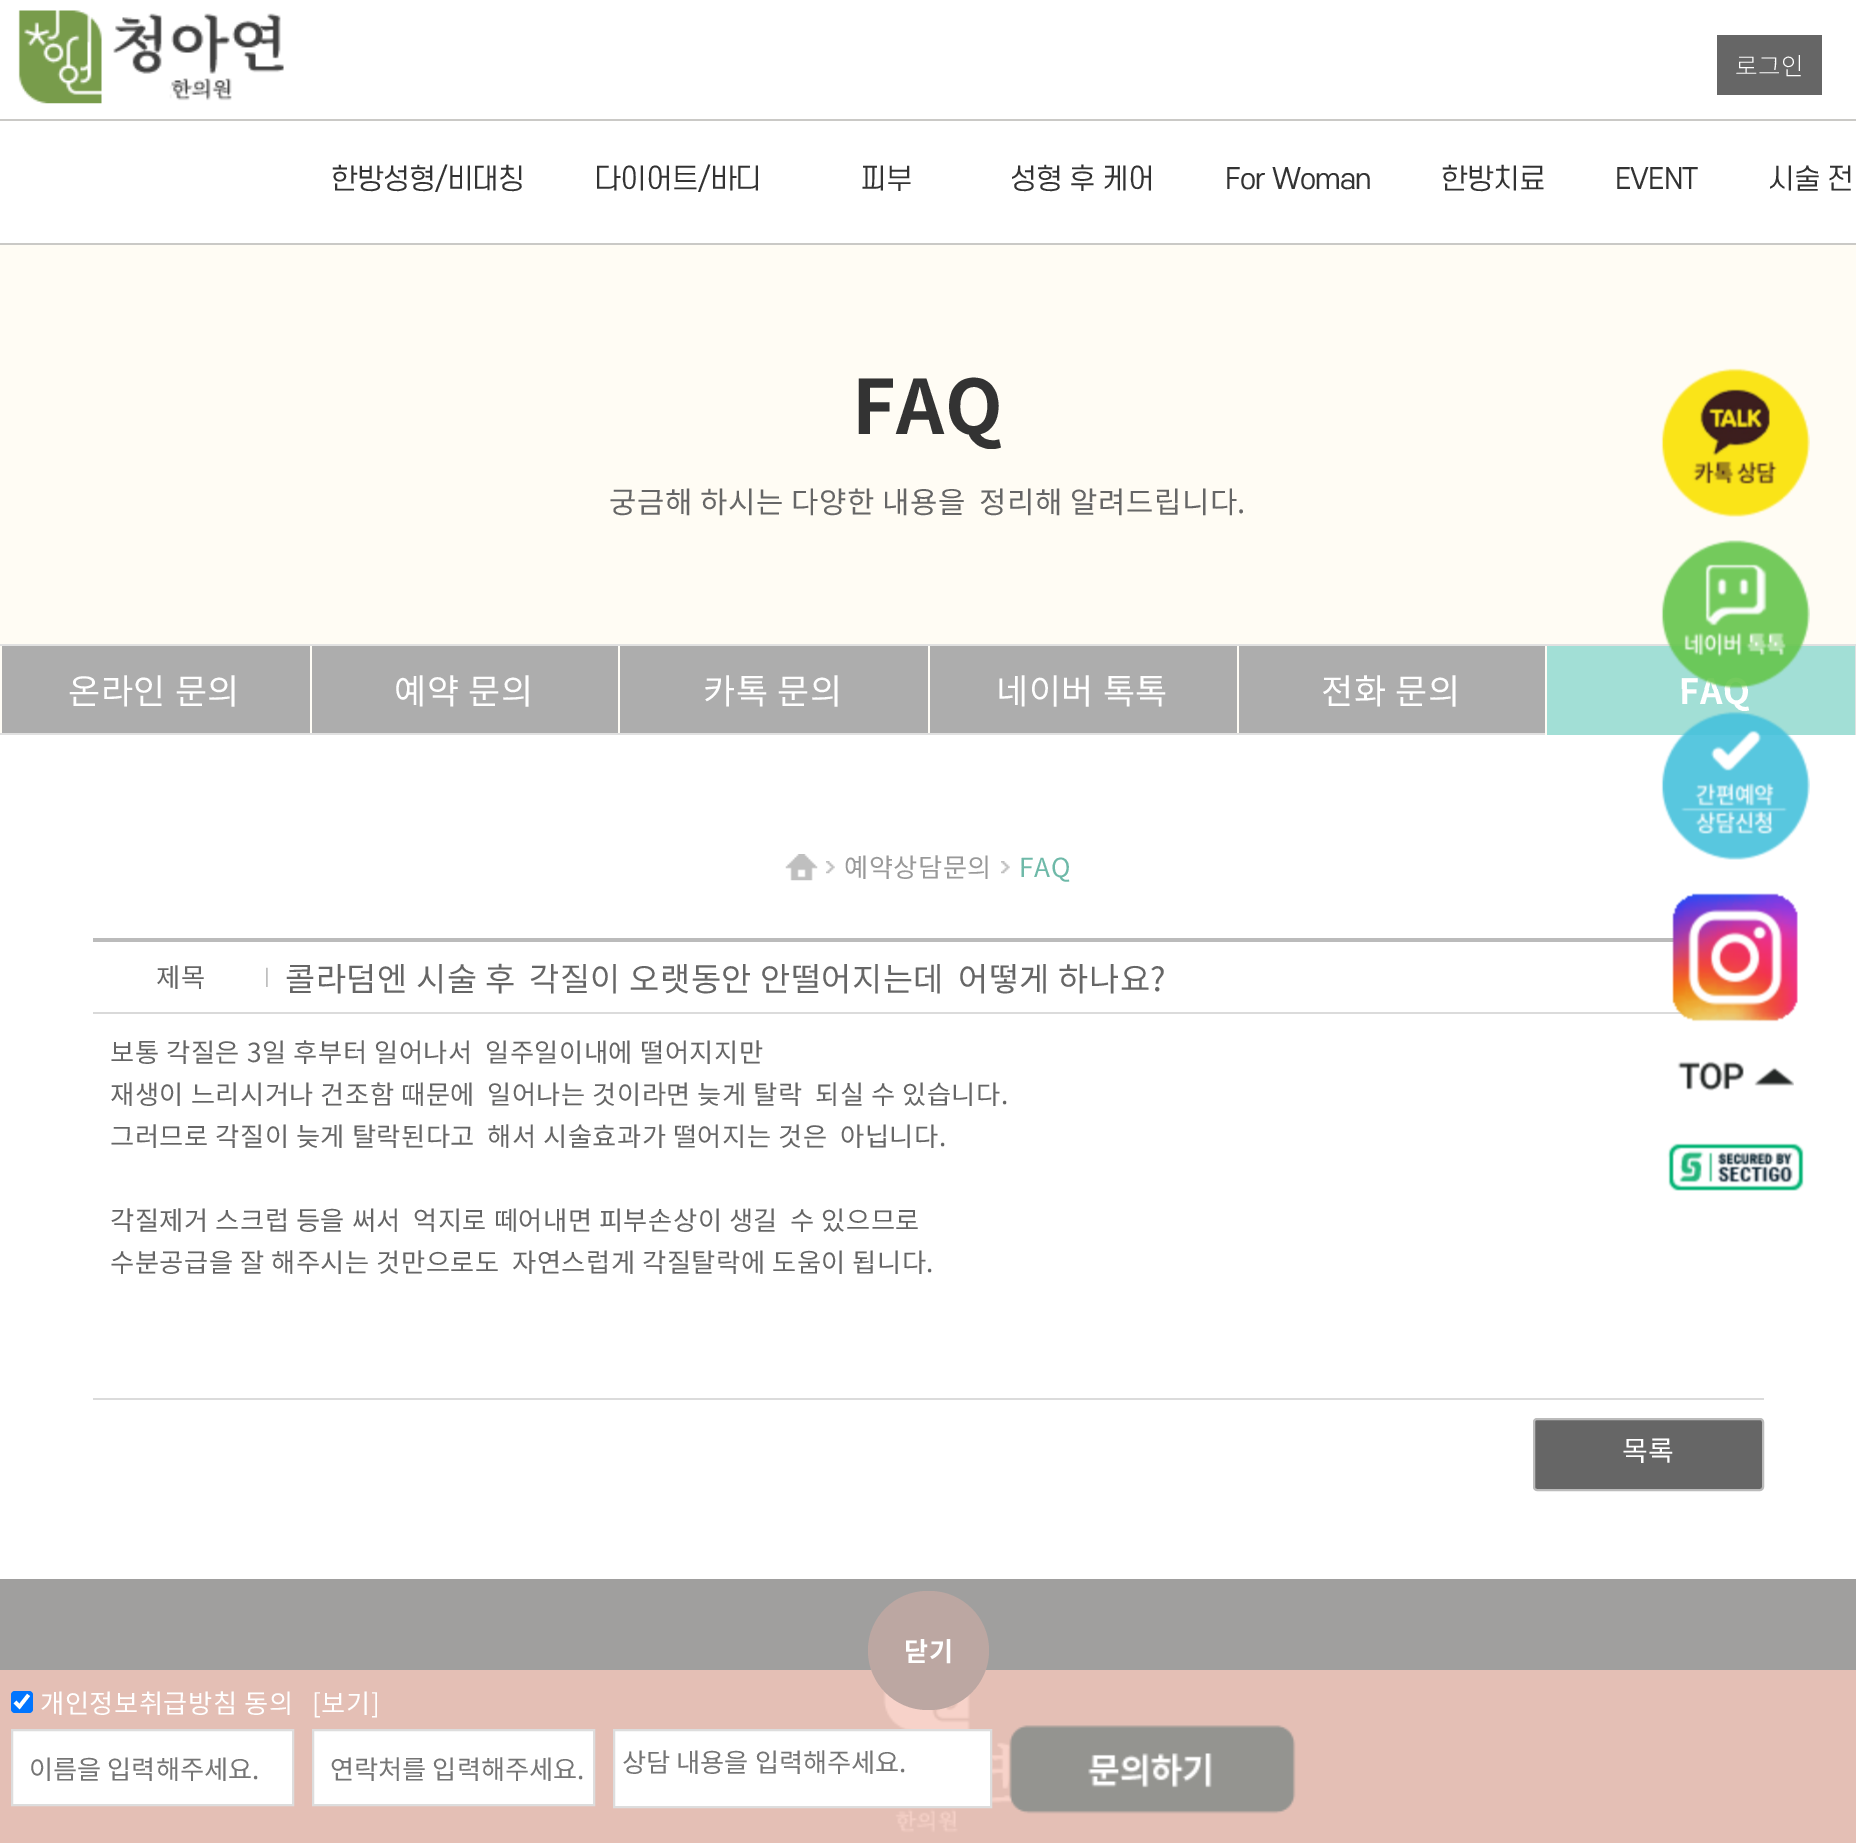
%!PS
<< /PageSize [1856 1843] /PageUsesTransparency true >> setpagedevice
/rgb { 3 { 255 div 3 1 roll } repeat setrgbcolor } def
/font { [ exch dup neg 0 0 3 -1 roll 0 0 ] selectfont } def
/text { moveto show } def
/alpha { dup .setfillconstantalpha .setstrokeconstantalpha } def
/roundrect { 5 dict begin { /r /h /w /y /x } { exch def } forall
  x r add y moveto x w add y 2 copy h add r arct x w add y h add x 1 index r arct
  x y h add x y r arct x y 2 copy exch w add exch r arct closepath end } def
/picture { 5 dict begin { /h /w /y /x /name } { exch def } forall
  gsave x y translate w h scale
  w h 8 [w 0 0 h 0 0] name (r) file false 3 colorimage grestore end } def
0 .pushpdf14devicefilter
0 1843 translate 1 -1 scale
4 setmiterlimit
255 255 255 rgb
0 0 1856 1843 rectfill
(img_01.rgb) 18 10 266 94 picture
102 102 102 rgb
1717 35 105 60 rectfill
202 201 198 rgb
0 119 1856 2 rectfill
0 243 1856 2 rectfill
255 252 244 rgb
0 245 1856 399 rectfill
(img_02.rgb) 1661 368 149 149 picture
187 187 187 rgb
93 938 1581 4 rectfill
219 219 219 rgb
268 1012 1415 2 rectfill
(img_05.rgb) 1672 893 126 129 picture
(img_06.rgb) 1677 1061 117 30 picture
(img_07.rgb) 1667 1143 137 48 picture
225 225 225 rgb
0 644 1856 2 rectfill
0 733 1545 2 rectfill
173 173 173 rgb
2 646 308 87 rectfill
255 253 246 rgb
0 646 2 87 rectfill
173 173 173 rgb
312 646 306 87 rectfill
255 253 246 rgb
310 646 2 87 rectfill
173 173 173 rgb
620 646 308 87 rectfill
255 253 246 rgb
618 646 2 87 rectfill
173 173 173 rgb
930 646 307 87 rectfill
255 253 246 rgb
928 646 2 87 rectfill
173 173 173 rgb
1239 646 306 87 rectfill
255 253 246 rgb
1237 646 2 87 rectfill
225 225 225 rgb
1855 644 1 91 rectfill
162 223 214 rgb
1547 646 308 89 rectfill
255 253 246 rgb
1545 646 2 89 rectfill
(img_08.rgb) 785 854 33 27 picture
(img_09.rgb) 826 861 9 13 picture
(img_09.rgb) 1001 861 9 13 picture
(img_10.rgb) 266 967 2 20 picture
217 217 217 rgb
93 1012 177 2 rectfill
219 219 219 rgb
93 1398 1671 2 rectfill
102 102 102 rgb
1534 1419 229 71 3 roundrect gsave fill grestore
187 187 187 rgb
2 setlinewidth
stroke
160 159 158 rgb
0 1579 1856 264 rectfill
(img_11.rgb) 883 1689 131 144 picture
0.8 alpha
245 199 187 rgb
0 1670 1856 173 rectfill
1 alpha
188 167 162 rgb
868 1591 121 119 59.5 roundrect fill
0 117 255 rgb
11 1691 22 22 4 roundrect fill
255 255 255 rgb
3.6 setlinewidth
15 1702 moveto 4.5 4.5 rlineto 9 -11.5 rlineto stroke
12 1730 moveto 281 0 rlineto 0 75 rlineto -281 0 rlineto closepath gsave fill grestore
221 221 221 rgb
2 setlinewidth
stroke
255 255 255 rgb
313 1730 moveto 281 0 rlineto 0 75 rlineto -281 0 rlineto closepath gsave fill grestore
221 221 221 rgb
stroke
255 255 255 rgb
614 1730 moveto 377 0 rlineto 0 77 rlineto -377 0 rlineto closepath gsave fill grestore
221 221 221 rgb
stroke
(img_12.rgb) 1009 1725 287 89 picture
/NotoSansKR-Light 24.5 font
255 255 255 rgb
1735 75 moveto 0.55 0 (로그인) ashow
/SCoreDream-Regular 28 font
51 51 51 rgb
331 189 moveto -0.9 0 (한방성형/비대칭) ashow
594 189 moveto -0.9 0 (다이어트/바디) ashow
860 189 moveto -0.9 0 (피부) ashow
1010 189 moveto -0.9 0 (성형 후 케어) ashow
1225 189 moveto -0.9 0 (For Woman) ashow
1441 189 moveto -0.9 0 (한방치료) ashow
1615 189 moveto -0.9 0 (EVENT) ashow
1768 189 moveto -0.9 0 (시술 전) ashow
/NotoSansKR-Bold 75 font
852 434 moveto 0.55 0 (FAQ) ashow
/NotoSansKR-Regular 29.75 font
102 102 102 rgb
609 513 moveto 0.55 0 (궁금해 하시는 다양한 내용을) ashow
979 513 moveto 0.55 0 (정리해 알려드립니다.) ashow
/NotoSansKR-Regular 35 font
255 255 255 rgb
68 704 moveto 0.55 0 (온라인 문의) ashow
394 704 moveto 0.55 0 (예약 문의) ashow
703 704 moveto 0.55 0 (카톡 문의) ashow
996 704 moveto 0.55 0 (네이버 톡톡) ashow
1321 704 moveto 0.55 0 (전화 문의) ashow
/NotoSansKR-Bold 35 font
1679 704 moveto 0.55 0 (FAQ) ashow
(img_04.rgb) 1661 711 149 149 picture
(img_03.rgb) 1661 540 149 149 picture
/NotoSansKR-Regular 26.25 font
153 153 153 rgb
844 877 moveto 0.55 0 (예약상담문의) ashow
110 185 168 rgb
1019 877 moveto 0.55 0 (FAQ) ashow
102 102 102 rgb
156 987 moveto 0.55 0 (제목) ashow
/NotoSansKR-Regular 32.8 font
285 991 moveto 0.55 0 (콜라덤엔 시술 후) ashow
529 991 moveto 0.55 0 (각질이 오랫동안 안떨어지는데) ashow
958 991 moveto 0.55 0 (어떻게 하나요?) ashow
/NotoSansKR-Regular 26.25 font
110 1062 moveto 0.25 0 32 0.55 0 (보통 각질은 3일 후부터 일어나서) awidthshow
485 1062 moveto 0.25 0 32 0.55 0 (일주일이내에 떨어지지만) awidthshow
110 1104 moveto 0.55 0 (재생이 느리시거나 건조함 때문에) ashow
487 1104 moveto 0.55 0 (일어나는 것이라면 늦게 탈락) ashow
815 1104 moveto 0.55 0 (되실 수 있습니다.) ashow
110 1146 moveto 0.55 0 (그러므로 각질이 늦게 탈락된다고) ashow
487 1146 moveto 0.55 0 (해서 시술효과가 떨어지는 것은) ashow
840 1146 moveto 0.55 0 (아닙니다.) ashow
110 1230 moveto 0.55 0 (각질제거 스크럽 등을 써서) ashow
413 1230 moveto 0.55 0 (억지로 떼어내면 피부손상이 생길) ashow
790 1230 moveto 0.55 0 (수 있으므로) ashow
110 1272 moveto 0.55 0 (수분공급을 잘 해주시는 것만으로도) ashow
512 1272 moveto 0.55 0 (자연스럽게 각질탈락에 도움이 됩니다.) ashow
/NotoSansKR-Regular 28 font
255 255 255 rgb
1622 1461 moveto 0.55 0 (목록) ashow
/NotoSansKR-Bold 26.25 font
904 1661 moveto 0.55 0 (닫기) ashow
/NotoSansKR-Regular 26.25 font
40 1713 moveto 0.55 0 (개인정보취급방침 동의) ashow
312 1713 moveto 0.55 0 ([보기]) ashow
117 117 117 rgb
(이름을 입력해주세요.) 29 1779 text
(연락처를 입력해주세요.) 330 1779 text
(상담 내용을 입력해주세요.) 622 1772 text
.poppdf14devicefilter showpage
